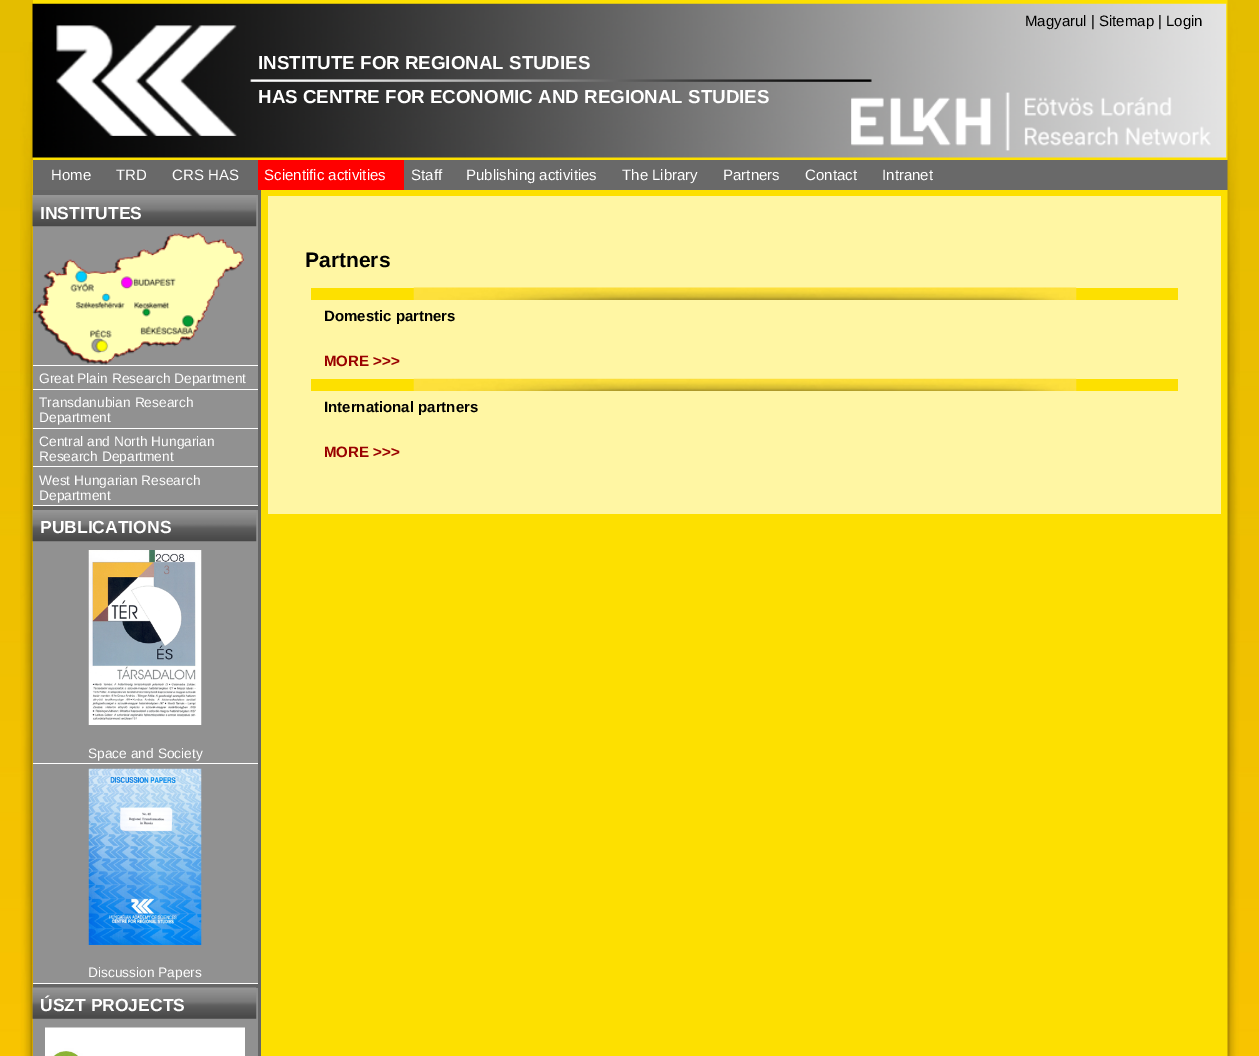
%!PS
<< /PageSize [1259 1056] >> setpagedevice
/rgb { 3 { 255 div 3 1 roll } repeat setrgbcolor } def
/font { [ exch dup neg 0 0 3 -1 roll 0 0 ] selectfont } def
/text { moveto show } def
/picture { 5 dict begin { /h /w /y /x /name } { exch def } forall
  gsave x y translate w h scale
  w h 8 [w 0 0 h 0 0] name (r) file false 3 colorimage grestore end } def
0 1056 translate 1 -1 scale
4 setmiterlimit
255 255 255 rgb
0 0 1259 1056 rectfill
(img_01.rgb) 0 0 1259 1056 picture
(img_02.rgb) 20 42 13 1014 picture
253 224 0 rgb
33 0 1195 1056 rectfill
(img_03.rgb) 32 3 1195 155 picture
105 105 105 rgb
33 160 1195 30 rectfill
255 0 0 rgb
258 160 146 30 rectfill
102 102 102 rgb
33 190 228 866 rectfill
145 145 145 rgb
33 195 225 310 rectfill
(img_04.rgb) 32 195 225 32 picture
255 255 255 rgb
33 365 225 1 rectfill
(img_05.rgb) 32 232 212 133 picture
33 389 225 1 rectfill
33 428 225 1 rectfill
33 466 225 1 rectfill
33 505 225 1 rectfill
145 145 145 rgb
33 510 225 473 rectfill
(img_06.rgb) 32 510 225 32 picture
255 255 255 rgb
33 763 225 1 rectfill
(img_07.rgb) 88 550 114 175 picture
33 983 225 1 rectfill
(img_08.rgb) 88 768 114 177 picture
145 145 145 rgb
33 988 225 68 rectfill
(img_09.rgb) 32 987 225 32 picture
(img_10.rgb) 45 1027 200 29 picture
255 246 163 rgb
268 196 953 318 rectfill
253 224 0 rgb
311 288 867 12 rectfill
(img_11.rgb) 413 287 664 13 picture
311 379 867 12 rectfill
(img_12.rgb) 413 378 664 13 picture
(img_13.rgb) 1227 0 13 1056 picture
/LiberationSans-Regular 15 font
0 0 0 rgb
(Magyarul | Sitemap | Login) 1025 26 text
/LiberationSans-Bold 18.75 font
255 255 255 rgb
(INSTITUTE FOR REGIONAL STUDIES) 258 69 text
(HAS CENTRE FOR ECONOMIC AND REGIONAL STUDIES) 258 103 text
/LiberationSans-Regular 15 font
(Home) 51 180 text
(TRD) 116 180 text
(CRS HAS) 172 180 text
(Scientific activities) 264 180 text
(Staff) 411 180 text
(Publishing activities) 466 180 text
(The Library) 622 180 text
(Partners) 723 180 text
(Contact) 805 180 text
(Intranet) 882 180 text
/LiberationSans-Bold 17.5 font
(INSTITUTES) 40 219 text
/LiberationSans-Regular 13.75 font
(Great Plain Research Department) 39 383 text
(Transdanubian Research) 39 407 text
(Department) 39 422 text
(Central and North Hungarian) 39 446 text
(Research Department) 39 461 text
(West Hungarian Research) 39 485 text
(Department) 39 500 text
/LiberationSans-Bold 17.5 font
(PUBLICATIONS) 40 533 text
/LiberationSans-Regular 13.75 font
(Space and Society) 88 758 text
(Discussion Papers) 88 977 text
/LiberationSans-Bold 17.5 font
(ÚSZT PROJECTS) 40 1011 text
/LiberationSans-Bold 21 font
0 0 0 rgb
(Partners) 305 267 text
/LiberationSans-Bold 15 font
(Domestic partners) 324 321 text
153 0 0 rgb
(MORE >>>) 324 366 text
0 0 0 rgb
(International partners) 324 412 text
153 0 0 rgb
(MORE >>>) 324 457 text
showpage
